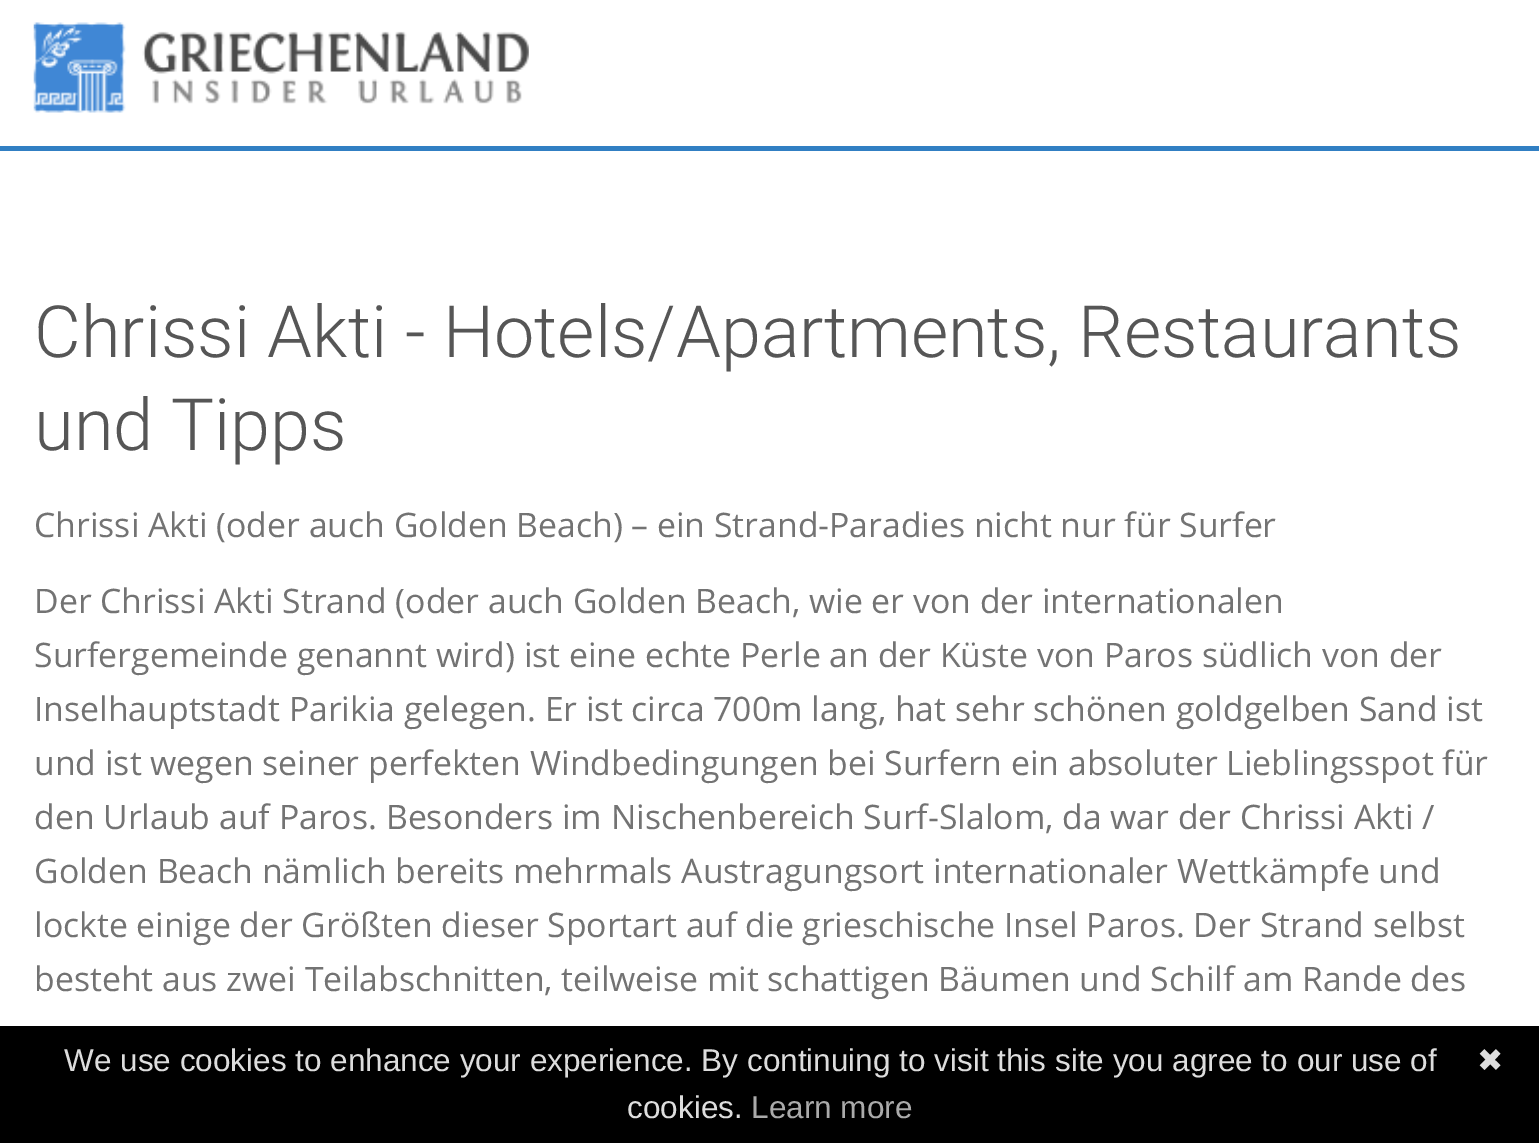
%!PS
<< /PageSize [1539 1143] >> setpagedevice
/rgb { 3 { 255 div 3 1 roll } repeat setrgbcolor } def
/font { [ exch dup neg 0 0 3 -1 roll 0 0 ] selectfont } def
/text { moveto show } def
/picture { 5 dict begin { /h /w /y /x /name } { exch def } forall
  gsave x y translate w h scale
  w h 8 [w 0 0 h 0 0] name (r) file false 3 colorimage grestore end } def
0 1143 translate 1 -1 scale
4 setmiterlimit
255 255 255 rgb
0 0 1539 1143 rectfill
49 127 195 rgb
0 146 1539 5 rectfill
(img_01.rgb) 33 22 496 91 picture
0 0 0 rgb
0 1026 1539 117 rectfill
/Roboto-Light 72 font
86 86 86 rgb
(Chrissi Akti - Hotels/Apartments, Restaurants) 34 357 text
(und Tipps) 34 450 text
/OpenSans-Regular 33.75 font
115 115 115 rgb
(Chrissi Akti \(oder auch Golden Beach\) – ein Strand-Paradies nicht nur für Surfer) 34 537 text
(Der Chrissi Akti Strand \(oder auch Golden Beach, wie er von der internationalen) 34 613 text
(Surfergemeinde genannt wird\) ist eine echte Perle an der Küste von Paros südlich von der) 34 667 text
(Inselhauptstadt Parikia gelegen. Er ist circa 700m lang, hat sehr schönen goldgelben Sand ist) 34 721 text
(und ist wegen seiner perfekten Windbedingungen bei Surfern ein absoluter Lieblingsspot für) 34 775 text
(den Urlaub auf Paros. Besonders im Nischenbereich Surf-Slalom, da war der Chrissi Akti /) 34 829 text
(Golden Beach nämlich bereits mehrmals Austragungsort internationaler Wettkämpfe und) 34 883 text
(lockte einige der Größten dieser Sportart auf die grieschische Insel Paros. Der Strand selbst) 34 937 text
(besteht aus zwei Teilabschnitten, teilweise mit schattigen Bäumen und Schilf am Rande des) 34 991 text
/LiberationSans-Regular 31.5 font
221 221 221 rgb
(We use cookies to enhance your experience. By continuing to visit this site you agree to our use of) 64 1071 text
/DejaVuSans-Regular 31.5 font
(✖) 1477 1071 text
/LiberationSans-Regular 31.5 font
(cookies.) 627 1118 text
170 170 170 rgb
(Learn more) 751 1118 text
showpage
